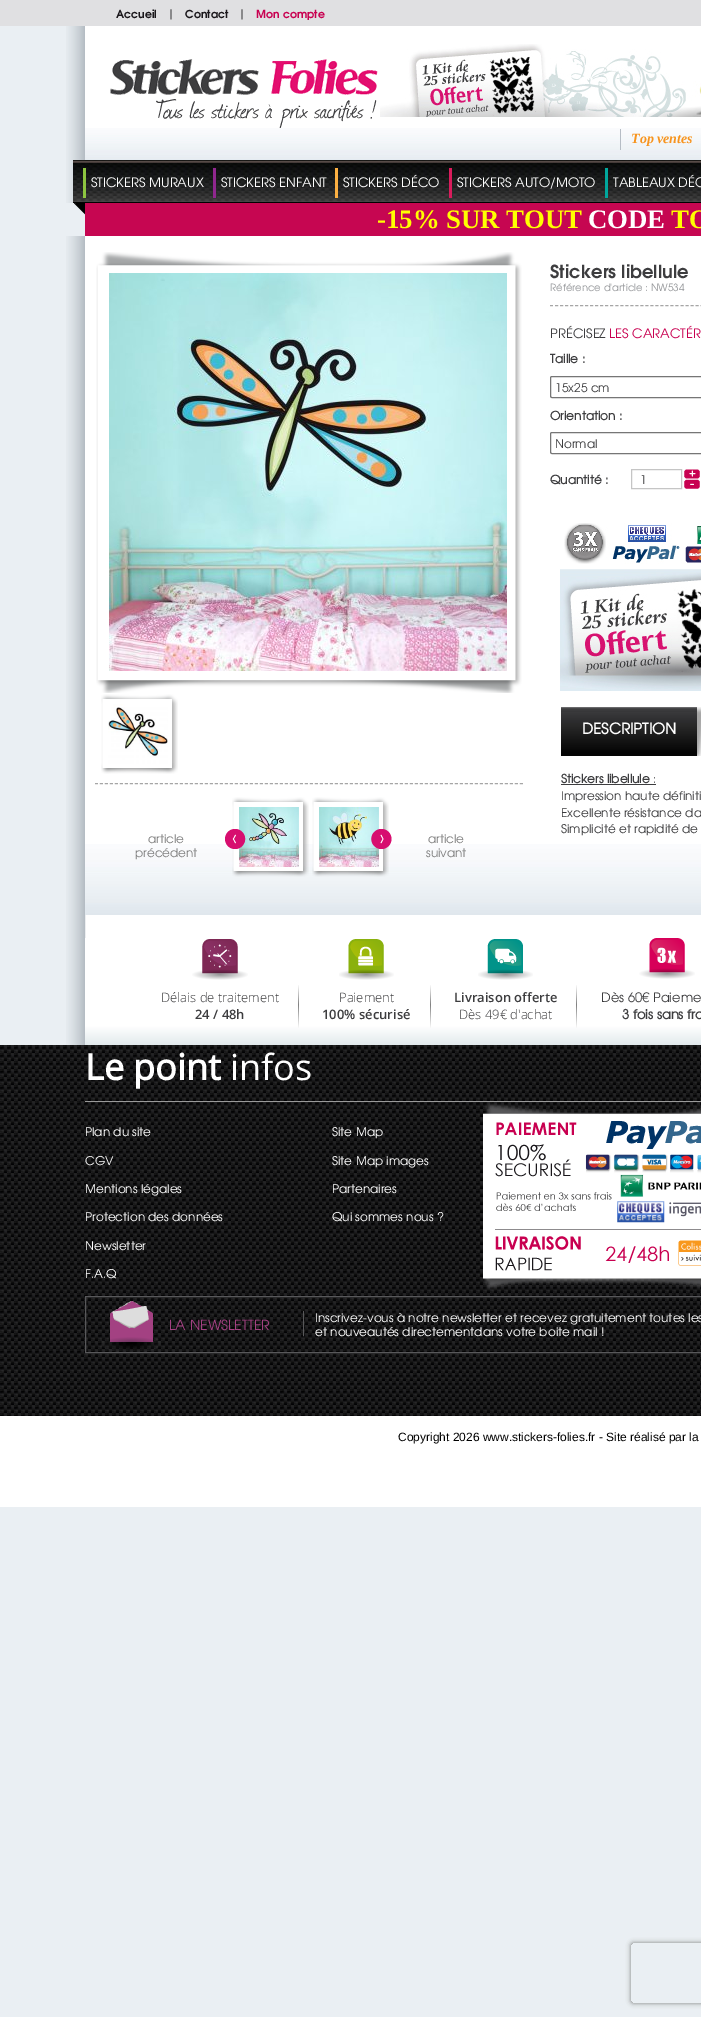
%!PS
<< /PageSize [701 2017] /PageUsesTransparency true >> setpagedevice
/rgb { 3 { 255 div 3 1 roll } repeat setrgbcolor } def
/font { [ exch dup neg 0 0 3 -1 roll 0 0 ] selectfont } def
/text { moveto show } def
/alpha { dup .setfillconstantalpha .setstrokeconstantalpha } def
/roundrect { 5 dict begin { /r /h /w /y /x } { exch def } forall
  x r add y moveto x w add y 2 copy h add r arct x w add y h add x 1 index r arct
  x y h add x y r arct x y 2 copy exch w add exch r arct closepath end } def
/shadow { 12 dict begin { /a /b /q /h /w /y /x } { exch def } forall gsave /was 0 def
  9 -2 -9 { dup b mul 4 div /e exch def 1 sub .425 mul 2.718 exch exp 1 add a .99 .min exch div /now exch def
    1 1 now sub 1 was sub div sub alpha /was now def
    w h .min e 2 mul add 0 gt { x e sub y e sub w e 2 mul add h e 2 mul add
      q e add b .6 mul add w h .min 2 div e add .min 0 .max roundrect fill } if } for grestore end } def
/picture { 5 dict begin { /h /w /y /x /name } { exch def } forall
  gsave x y translate w h scale
  w h 8 [w 0 0 h 0 0] name (r) file false 3 colorimage grestore end } def
0 .pushpdf14devicefilter
0 2017 translate 1 -1 scale
4 setmiterlimit
234 239 243 rgb
0 0 701 2017 rectfill
224 224 226 rgb
0 0 701 26 rectfill
(img_01.rgb) 66 26 19 177 picture
255 255 255 rgb
85 26 616 102 rectfill
(img_02.rgb) 85 128 616 32 picture
(img_03.rgb) 110 59 268 69 picture
(img_04.rgb) 380 44 321 73 picture
182 189 197 rgb
620 129 1 21 rectfill
(img_05.rgb) 73 160 628 43 picture
141 197 64 rgb
83 168 3 30 rectfill
144 39 142 rgb
213 168 3 30 rectfill
252 176 66 rgb
335 168 3 30 rectfill
218 28 92 rgb
449 168 3 30 rectfill
1 167 157 rgb
605 168 3 30 rectfill
(img_06.rgb) 74 203 11 12 picture
198 6 81 rgb
85 203 616 33 rectfill
(img_07.rgb) 66 236 19 679 picture
255 255 255 rgb
85 236 616 608 rectfill
(img_08.rgb) 85 844 616 71 picture
166 166 166 rgb
[3 2.02] 0 setdash
550 305.5 moveto 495 0 rlineto stroke
118 118 118 rgb
[] 0 setdash
550.5 376.5 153 21 1.5 roundrect stroke
550.5 432.5 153 21 1.5 roundrect stroke
197 197 197 rgb
631.5 469.5 50 19 rectstroke
(img_09.rgb) 684 469 16 10 picture
(img_10.rgb) 684 479 16 10 picture
(img_11.rgb) 564 523 137 41 picture
(img_12.rgb) 560 569 141 122 picture
(img_13.rgb) 561 707 136 49 picture
(img_14.rgb) 697 707 4 49 picture
61 61 63 rgb
561 784 95 1 rectfill
(img_15.rgb) 96 252 426 441 picture
(img_16.rgb) 109 273 398 398 picture
(img_17.rgb) 101 694 77 80 picture
(img_18.rgb) 108 704 60 60 picture
166 166 166 rgb
[3 2] 0 setdash
95 783.5 moveto 428 0 rlineto stroke
(img_19.rgb) 232 797 77 80 picture
(img_21.rgb) 239 807 60 60 picture
(img_20.rgb) 225 829 21 20 picture
(img_19.rgb) 312 797 77 80 picture
(img_22.rgb) 319 807 60 60 picture
(img_23.rgb) 371 829 21 20 picture
(img_24.rgb) 66 915 635 130 picture
gsave 85 938 moveto 616 0 rlineto 0 107 rlineto -616 0 rlineto closepath clip newpath
<< /ShadingType 2 /ColorSpace /DeviceRGB /Coords [575 938 575 1045] /Extend [true true] /Function << /FunctionType 3 /Domain [0 1] /Functions [<< /FunctionType 2 /Domain [0 1] /C0 [1 1 1] /C1 [1 1 1] /N 1 >> << /FunctionType 2 /Domain [0 1] /C0 [1 1 1] /C1 [0.886 0.918 0.929] /N 1 >>] /Bounds [0.82] /Encode [0 1 0 1] >> >> shfill grestore
(img_25.rgb) 298 985 1 43 picture
(img_26.rgb) 192 939 56 41 picture
(img_25.rgb) 430 985 1 43 picture
(img_27.rgb) 339 939 55 41 picture
(img_25.rgb) 576 985 1 43 picture
(img_28.rgb) 478 939 55 41 picture
(img_29.rgb) 639 938 56 41 picture
(img_30.rgb) 0 1045 701 371 picture
154 154 154 rgb
85 1101 616 1 rectfill
(img_31.rgb) 483 1102 218 189 picture
(img_32.rgb) 101 1301 203 51 picture
88 88 90 rgb
[] 0 setdash
85.5 1296.5 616 56 rectstroke
255 255 255 rgb
0 1416 701 91 rectfill
gsave
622 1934 moveto 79 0 rlineto 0 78 rlineto -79 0 rlineto closepath 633 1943 moveto 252 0 rlineto 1 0 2 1 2 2 rcurveto 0 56 rlineto 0 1 -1 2 -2 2 rcurveto -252 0 rlineto -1 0 -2 -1 -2 -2 rcurveto 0 -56 rlineto 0 -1 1 -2 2 -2 rcurveto closepath eoclip newpath
128 128 128 rgb
631 1943 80 60 2 2.5 1 shadow
grestore
/TeXGyreAdventor-Bold 11 font
26 23 27 rgb
(Accueil) 116 18 text
/TeXGyreAdventor-Regular 12 font
61 61 63 rgb
(|) 167 18 text
/TeXGyreAdventor-Bold 11 font
26 23 27 rgb
(Contact) 185 18 text
/TeXGyreAdventor-Regular 12 font
61 61 63 rgb
(|) 238 18 text
/TeXGyreAdventor-Bold 11 font
200 0 80 rgb
(Mon compte) 256 18 text
/LiberationSerif-BoldItalic 14 font
247 148 30 rgb
(Top ventes) 631 143 text
/TeXGyreAdventor-Regular 13 font
255 255 255 rgb
(STICKERS MURAUX) 91 187 text
(STICKERS ENFANT) 221 187 text
(STICKERS DÉCO) 343 187 text
(STICKERS AUTO/MOTO) 457 187 text
(TABLEAUX DÉC) 613 187 text
/LiberationSerif-Bold 26.75 font
255 255 0 rgb
(-15% SUR TOUT) 377 228 text
255 255 255 rgb
(CODE) 588 228 text
255 255 0 rgb
(TO) 671 228 text
/TeXGyreAdventor-Bold 18 font
61 61 63 rgb
(Stickers libellule) 550 278 text
/TeXGyreAdventor-Regular 10 font
147 149 152 rgb
(Référence d'article : NW534) 550 291 text
/TeXGyreAdventor-Regular 13 font
61 61 63 rgb
(PRÉCISEZ) 550 338 text
200 0 80 rgb
(LES CARACTÉR) 609 338 text
/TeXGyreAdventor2-Bold 12 font
61 61 63 rgb
(Taille :) 550 363 text
/TeXGyreAdventor-Regular 12 font
(15x25 cm) 555 392 text
/TeXGyreAdventor2-Bold 12 font
(Orientation :) 550 420 text
/TeXGyreAdventor-Regular 12 font
(Normal) 555 448 text
/TeXGyreAdventor2-Bold 12 font
(Quantité :) 550 484 text
/TeXGyreAdventor-Regular 12 font
(1) 640 484 text
/TeXGyreAdventor2-Bold 15 font
255 255 255 rgb
(DESCRIPTION) 582 734 text
/TeXGyreAdventor2-Bold 12 font
61 61 63 rgb
(Stickers libellule) 561 783 text
/TeXGyreAdventor-Regular 12 font
(:) 653 783 text
(Impression haute définiti) 561 800 text
(Excellente résistance da) 561 817 text
(Simplicité et rapidité de) 561 833 text
128 128 128 rgb
(article) 148 843 text
(précédent) 135 857 text
(article) 428 843 text
(suivant) 426 857 text
/OpenSans-Light 13 font
61 61 63 rgb
(Délais de traitement) 161 1002 text
/OpenSans-SemiBold 13 font
(24 / 48h) 195 1019 text
/OpenSans-Light 13 font
(Paiement) 339 1002 text
/OpenSans-SemiBold 13 font
(100% sécurisé) 322 1019 text
(Livraison offerte) 454 1002 text
/OpenSans-Light 13 font
(Dès 49€ d'achat) 459 1019 text
/TeXGyreAdventor-Regular 13 font
(Dès 60€ Paieme) 601 1002 text
/TeXGyreAdventor2-Bold 13 font
(3 fois sans fra) 622 1019 text
/OpenSans-Bold 36 font
255 255 255 rgb
(Le point) 85 1080 text
/OpenSans-Regular 36 font
(infos) 230 1080 text
/TeXGyreAdventor-Regular 12 font
(Plan du site) 85 1136 text
(CGV) 85 1165 text
(Mentions légales) 85 1193 text
(Protection des données) 85 1221 text
(Newsletter) 85 1250 text
(F.A.Q) 85 1278 text
(Site Map) 332 1136 text
(Site Map images) 332 1165 text
(Partenaires) 332 1193 text
(Qui sommes nous ?) 332 1221 text
/TeXGyreAdventor-Regular 14 font
163 65 130 rgb
(LA NEWSLETTER) 169 1330 text
/TeXGyreAdventor-Regular 12 font
255 255 255 rgb
(Inscrivez-vous à notre newsletter et recevez gratuitement toutes les) 315 1322 text
(et nouveautés directementdans votre boite mail !) 315 1336 text
/LiberationSans-Regular 12 font
0 0 0 rgb
(Copyright 2026 www.stickers-folies.fr - Site réalisé par la) 398 1441 text
.poppdf14devicefilter showpage
